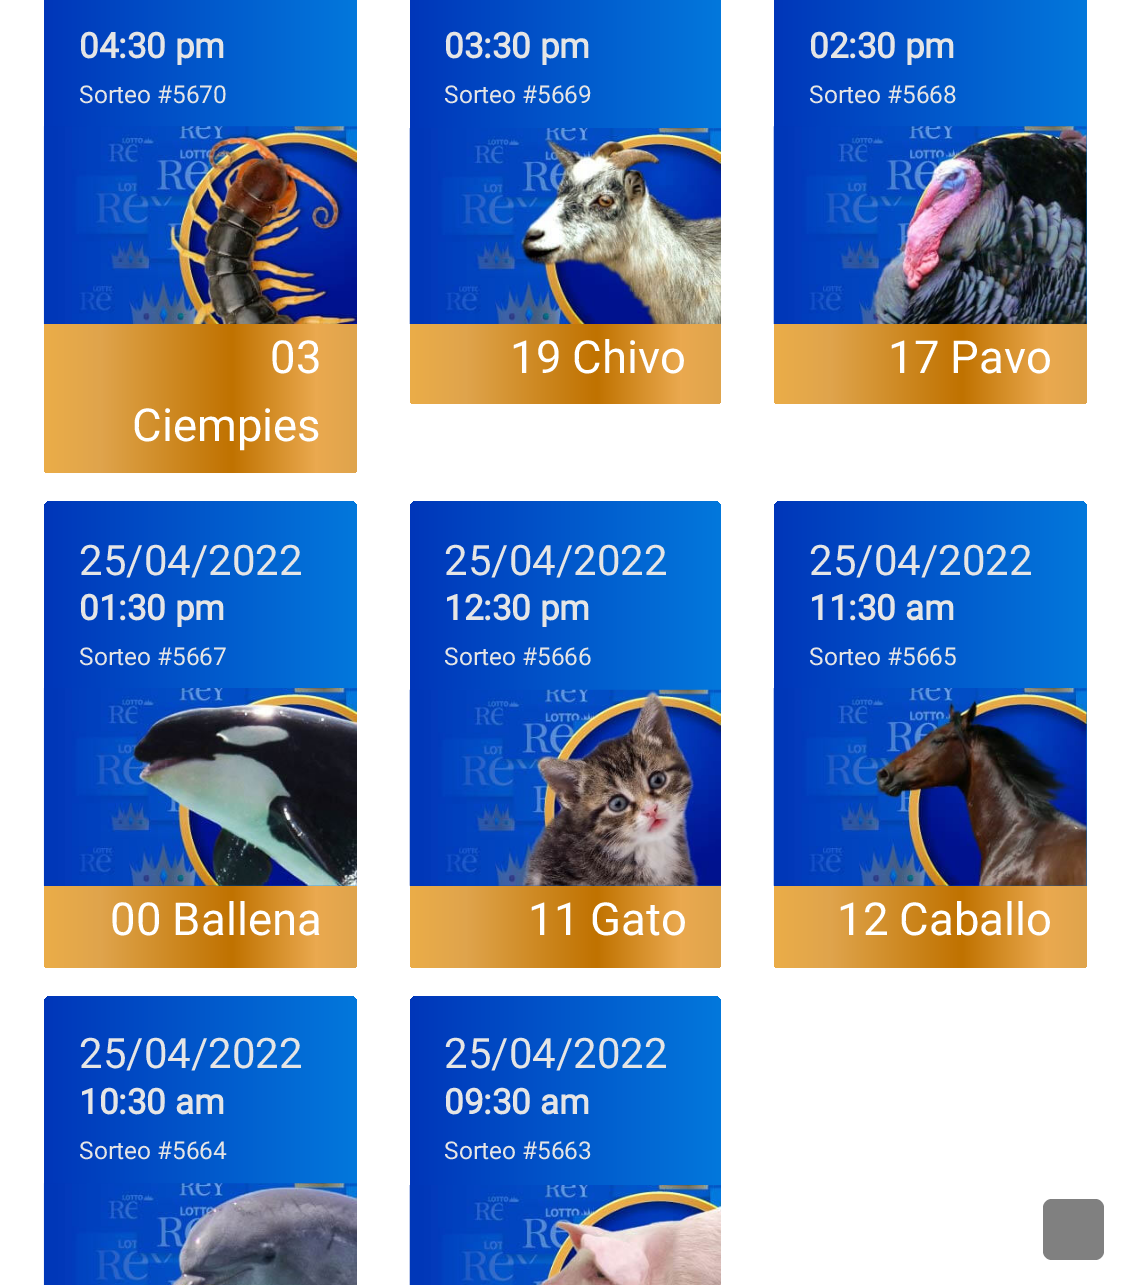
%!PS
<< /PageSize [1130 1285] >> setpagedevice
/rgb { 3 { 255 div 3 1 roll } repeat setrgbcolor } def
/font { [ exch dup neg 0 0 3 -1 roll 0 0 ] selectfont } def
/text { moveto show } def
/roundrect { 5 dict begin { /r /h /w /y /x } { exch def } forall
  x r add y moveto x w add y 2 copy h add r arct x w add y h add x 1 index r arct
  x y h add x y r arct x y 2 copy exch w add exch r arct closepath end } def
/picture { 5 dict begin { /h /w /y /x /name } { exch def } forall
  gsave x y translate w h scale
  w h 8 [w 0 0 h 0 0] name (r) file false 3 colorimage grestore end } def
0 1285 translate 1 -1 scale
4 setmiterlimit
255 255 255 rgb
0 0 1130 1285 rectfill
gsave 44 -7 313 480 7 roundrect clip newpath
<< /ShadingType 2 /ColorSpace /DeviceRGB /Coords [44 206 357 206] /Extend [true true] /Function << /FunctionType 2 /Domain [0 1] /C0 [0 0.212 0.725] /C1 [0.012 0.471 0.863] /N 1 >> >> shfill grestore
(img_01.rgb) 43 126 314 198 picture
gsave 44 324 moveto 313 0 rlineto 0 144 rlineto 0 3 -2 5 -5 5 rcurveto -303 0 rlineto -3 0 -5 -2 -5 -5 rcurveto closepath clip newpath
<< /ShadingType 2 /ColorSpace /DeviceRGB /Coords [44 398 357 398] /Extend [true true] /Function << /FunctionType 3 /Domain [0 1] /Functions [<< /FunctionType 2 /Domain [0 1] /C0 [0.922 0.678 0.282] /C1 [0.875 0.643 0.298] /N 1 >> << /FunctionType 2 /Domain [0 1] /C0 [0.875 0.643 0.298] /C1 [0.753 0.447 0] /N 1 >> << /FunctionType 2 /Domain [0 1] /C0 [0.753 0.447 0] /C1 [0.918 0.663 0.31] /N 1 >> << /FunctionType 2 /Domain [0 1] /C0 [0.918 0.663 0.31] /C1 [0.875 0.643 0.298] /N 1 >>] /Bounds [0.18 0.6 0.87] /Encode [0 1 0 1 0 1 0 1] >> >> shfill grestore
gsave 410 -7 311 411 7 roundrect clip newpath
<< /ShadingType 2 /ColorSpace /DeviceRGB /Coords [410 172 721 172] /Extend [true true] /Function << /FunctionType 2 /Domain [0 1] /C0 [0 0.212 0.725] /C1 [0.012 0.471 0.863] /N 1 >> >> shfill grestore
(img_02.rgb) 409 128 312 196 picture
gsave 410 324 moveto 311 0 rlineto 0 75 rlineto 0 3 -2 5 -5 5 rcurveto -301 0 rlineto -3 0 -5 -2 -5 -5 rcurveto closepath clip newpath
<< /ShadingType 2 /ColorSpace /DeviceRGB /Coords [410 364 721 364] /Extend [true true] /Function << /FunctionType 3 /Domain [0 1] /Functions [<< /FunctionType 2 /Domain [0 1] /C0 [0.922 0.678 0.282] /C1 [0.875 0.643 0.298] /N 1 >> << /FunctionType 2 /Domain [0 1] /C0 [0.875 0.643 0.298] /C1 [0.753 0.447 0] /N 1 >> << /FunctionType 2 /Domain [0 1] /C0 [0.753 0.447 0] /C1 [0.918 0.663 0.31] /N 1 >> << /FunctionType 2 /Domain [0 1] /C0 [0.918 0.663 0.31] /C1 [0.875 0.643 0.298] /N 1 >>] /Bounds [0.18 0.6 0.87] /Encode [0 1 0 1 0 1 0 1] >> >> shfill grestore
gsave 774 -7 313 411 7 roundrect clip newpath
<< /ShadingType 2 /ColorSpace /DeviceRGB /Coords [774 172 1087 172] /Extend [true true] /Function << /FunctionType 2 /Domain [0 1] /C0 [0 0.212 0.725] /C1 [0.012 0.471 0.863] /N 1 >> >> shfill grestore
(img_03.rgb) 773 126 314 198 picture
gsave 774 324 moveto 313 0 rlineto 0 75 rlineto 0 3 -2 5 -5 5 rcurveto -303 0 rlineto -3 0 -5 -2 -5 -5 rcurveto closepath clip newpath
<< /ShadingType 2 /ColorSpace /DeviceRGB /Coords [774 364 1087 364] /Extend [true true] /Function << /FunctionType 3 /Domain [0 1] /Functions [<< /FunctionType 2 /Domain [0 1] /C0 [0.922 0.678 0.282] /C1 [0.875 0.643 0.298] /N 1 >> << /FunctionType 2 /Domain [0 1] /C0 [0.875 0.643 0.298] /C1 [0.753 0.447 0] /N 1 >> << /FunctionType 2 /Domain [0 1] /C0 [0.753 0.447 0] /C1 [0.918 0.663 0.31] /N 1 >> << /FunctionType 2 /Domain [0 1] /C0 [0.918 0.663 0.31] /C1 [0.875 0.643 0.298] /N 1 >>] /Bounds [0.18 0.6 0.87] /Encode [0 1 0 1 0 1 0 1] >> >> shfill grestore
gsave 44 501 313 467 7 roundrect clip newpath
<< /ShadingType 2 /ColorSpace /DeviceRGB /Coords [44 734 357 734] /Extend [true true] /Function << /FunctionType 2 /Domain [0 1] /C0 [0 0.212 0.725] /C1 [0.012 0.471 0.863] /N 1 >> >> shfill grestore
(img_04.rgb) 43 688 314 198 picture
gsave 44 886 moveto 313 0 rlineto 0 77 rlineto 0 3 -2 5 -5 5 rcurveto -303 0 rlineto -3 0 -5 -2 -5 -5 rcurveto closepath clip newpath
<< /ShadingType 2 /ColorSpace /DeviceRGB /Coords [44 927 357 927] /Extend [true true] /Function << /FunctionType 3 /Domain [0 1] /Functions [<< /FunctionType 2 /Domain [0 1] /C0 [0.922 0.678 0.282] /C1 [0.875 0.643 0.298] /N 1 >> << /FunctionType 2 /Domain [0 1] /C0 [0.875 0.643 0.298] /C1 [0.753 0.447 0] /N 1 >> << /FunctionType 2 /Domain [0 1] /C0 [0.753 0.447 0] /C1 [0.918 0.663 0.31] /N 1 >> << /FunctionType 2 /Domain [0 1] /C0 [0.918 0.663 0.31] /C1 [0.875 0.643 0.298] /N 1 >>] /Bounds [0.18 0.6 0.87] /Encode [0 1 0 1 0 1 0 1] >> >> shfill grestore
gsave 410 501 311 467 7 roundrect clip newpath
<< /ShadingType 2 /ColorSpace /DeviceRGB /Coords [410 734 721 734] /Extend [true true] /Function << /FunctionType 2 /Domain [0 1] /C0 [0 0.212 0.725] /C1 [0.012 0.471 0.863] /N 1 >> >> shfill grestore
(img_05.rgb) 409 689 312 197 picture
gsave 410 886 moveto 311 0 rlineto 0 77 rlineto 0 3 -2 5 -5 5 rcurveto -301 0 rlineto -3 0 -5 -2 -5 -5 rcurveto closepath clip newpath
<< /ShadingType 2 /ColorSpace /DeviceRGB /Coords [410 927 721 927] /Extend [true true] /Function << /FunctionType 3 /Domain [0 1] /Functions [<< /FunctionType 2 /Domain [0 1] /C0 [0.922 0.678 0.282] /C1 [0.875 0.643 0.298] /N 1 >> << /FunctionType 2 /Domain [0 1] /C0 [0.875 0.643 0.298] /C1 [0.753 0.447 0] /N 1 >> << /FunctionType 2 /Domain [0 1] /C0 [0.753 0.447 0] /C1 [0.918 0.663 0.31] /N 1 >> << /FunctionType 2 /Domain [0 1] /C0 [0.918 0.663 0.31] /C1 [0.875 0.643 0.298] /N 1 >>] /Bounds [0.18 0.6 0.87] /Encode [0 1 0 1 0 1 0 1] >> >> shfill grestore
gsave 774 501 313 467 7 roundrect clip newpath
<< /ShadingType 2 /ColorSpace /DeviceRGB /Coords [774 734 1087 734] /Extend [true true] /Function << /FunctionType 2 /Domain [0 1] /C0 [0 0.212 0.725] /C1 [0.012 0.471 0.863] /N 1 >> >> shfill grestore
(img_06.rgb) 773 688 314 198 picture
gsave 774 886 moveto 313 0 rlineto 0 77 rlineto 0 3 -2 5 -5 5 rcurveto -303 0 rlineto -3 0 -5 -2 -5 -5 rcurveto closepath clip newpath
<< /ShadingType 2 /ColorSpace /DeviceRGB /Coords [774 927 1087 927] /Extend [true true] /Function << /FunctionType 3 /Domain [0 1] /Functions [<< /FunctionType 2 /Domain [0 1] /C0 [0.922 0.678 0.282] /C1 [0.875 0.643 0.298] /N 1 >> << /FunctionType 2 /Domain [0 1] /C0 [0.875 0.643 0.298] /C1 [0.753 0.447 0] /N 1 >> << /FunctionType 2 /Domain [0 1] /C0 [0.753 0.447 0] /C1 [0.918 0.663 0.31] /N 1 >> << /FunctionType 2 /Domain [0 1] /C0 [0.918 0.663 0.31] /C1 [0.875 0.643 0.298] /N 1 >>] /Bounds [0.18 0.6 0.87] /Encode [0 1 0 1 0 1 0 1] >> >> shfill grestore
gsave 44 996 313 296 7 roundrect clip newpath
<< /ShadingType 2 /ColorSpace /DeviceRGB /Coords [44 1229 357 1229] /Extend [true true] /Function << /FunctionType 2 /Domain [0 1] /C0 [0 0.212 0.725] /C1 [0.012 0.471 0.863] /N 1 >> >> shfill grestore
(img_07.rgb) 43 1183 314 102 picture
gsave 410 996 311 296 7 roundrect clip newpath
<< /ShadingType 2 /ColorSpace /DeviceRGB /Coords [410 1229 721 1229] /Extend [true true] /Function << /FunctionType 2 /Domain [0 1] /C0 [0 0.212 0.725] /C1 [0.012 0.471 0.863] /N 1 >> >> shfill grestore
(img_08.rgb) 409 1185 312 100 picture
128 128 128 rgb
1043 1199 61 61 9 roundrect fill
/Roboto-Bold 35 font
229 229 229 rgb
(04:30 pm) 79 58 text
/Roboto-Regular 24.5 font
(Sorteo #5670) 79 103 text
/Roboto-Regular 45.5 font
255 255 255 rgb
(03) 270 373 text
(Ciempies) 132 441 text
/Roboto-Bold 35 font
229 229 229 rgb
(03:30 pm) 444 58 text
/Roboto-Regular 24.5 font
(Sorteo #5669) 444 103 text
/Roboto-Regular 45.5 font
255 255 255 rgb
(19 Chivo) 510 373 text
/Roboto-Bold 35 font
229 229 229 rgb
(02:30 pm) 809 58 text
/Roboto-Regular 24.5 font
(Sorteo #5668) 809 103 text
/Roboto-Regular 45.5 font
255 255 255 rgb
(17 Pavo) 888 373 text
/Roboto-Regular 42 font
229 229 229 rgb
(25/04/2022) 79 575 text
/Roboto-Bold 35 font
(01:30 pm) 79 620 text
/Roboto-Regular 24.5 font
(Sorteo #5667) 79 665 text
/Roboto-Regular 45.5 font
255 255 255 rgb
(00 Ballena) 110 935 text
/Roboto-Regular 42 font
229 229 229 rgb
(25/04/2022) 444 575 text
/Roboto-Bold 35 font
(12:30 pm) 444 620 text
/Roboto-Regular 24.5 font
(Sorteo #5666) 444 665 text
/Roboto-Regular 45.5 font
255 255 255 rgb
(11 Gato) 528 935 text
/Roboto-Regular 42 font
229 229 229 rgb
(25/04/2022) 809 575 text
/Roboto-Bold 35 font
(11:30 am) 809 620 text
/Roboto-Regular 24.5 font
(Sorteo #5665) 809 665 text
/Roboto-Regular 45.5 font
255 255 255 rgb
(12 Caballo) 837 935 text
/Roboto-Regular 42 font
229 229 229 rgb
(25/04/2022) 79 1068 text
/Roboto-Bold 35 font
(10:30 am) 79 1114 text
/Roboto-Regular 24.5 font
(Sorteo #5664) 79 1159 text
/Roboto-Regular 42 font
(25/04/2022) 444 1068 text
/Roboto-Bold 35 font
(09:30 am) 444 1114 text
/Roboto-Regular 24.5 font
(Sorteo #5663) 444 1159 text
showpage
